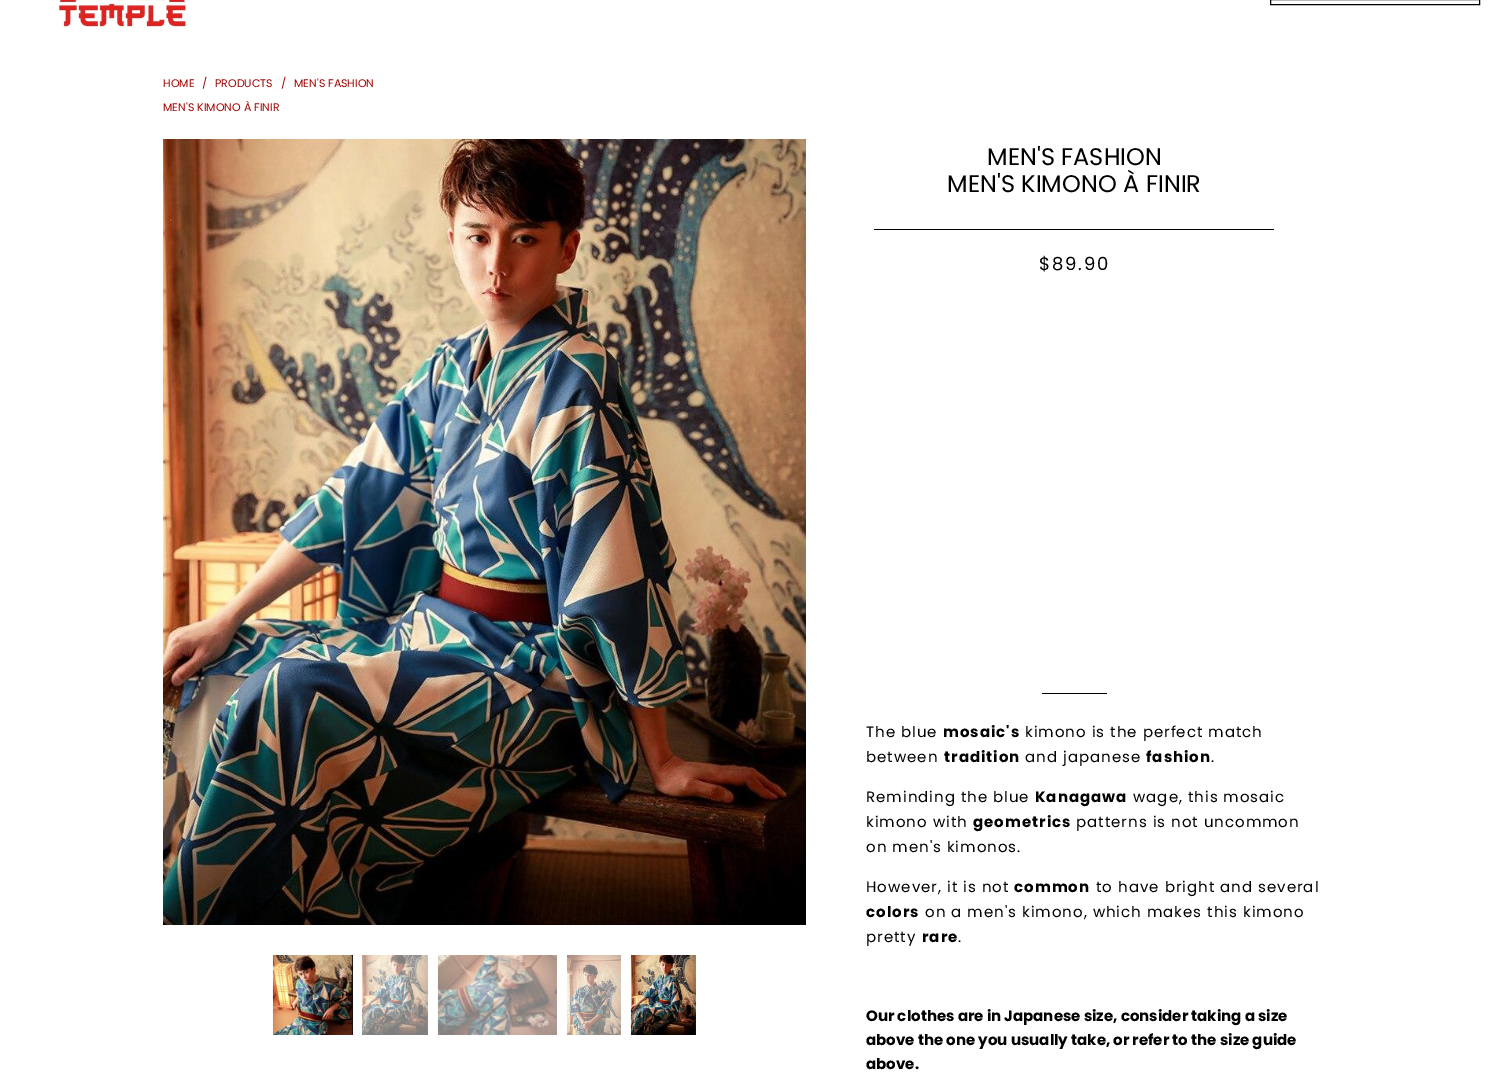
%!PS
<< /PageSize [1505 1089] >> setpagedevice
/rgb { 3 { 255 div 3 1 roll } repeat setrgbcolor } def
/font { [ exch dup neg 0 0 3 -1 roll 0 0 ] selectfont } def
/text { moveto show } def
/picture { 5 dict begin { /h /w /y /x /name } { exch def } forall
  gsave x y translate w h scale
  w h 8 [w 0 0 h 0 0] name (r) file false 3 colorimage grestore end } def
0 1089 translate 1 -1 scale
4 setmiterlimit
255 255 255 rgb
0 0 1505 1089 rectfill
(img_01.rgb) 57 0 130 29 picture
0 0 0 rgb
1270.5 -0.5 209 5 rectstroke
(img_02.rgb) 163 139 643 786 picture
(img_03.rgb) 272 955 81 80 picture
(img_04.rgb) 361 955 67 80 picture
(img_05.rgb) 437 955 120 80 picture
(img_06.rgb) 566 955 55 80 picture
(img_07.rgb) 630 955 66 80 picture
874 229 400 1 rectfill
1042 693 65 1 rectfill
/Poppins-Regular 11 font
161 3 3 rgb
(HOME) 163 87 text
(/) 202 87 text
(PRODUCTS) 215 87 text
(/) 281 87 text
(MEN'S FASHION) 294 87 text
(MEN'S KIMONO À FINIR) 163 111 text
/Poppins-Regular 24 font
0 0 0 rgb
(MEN'S FASHION) 987 165 text
(MEN'S KIMONO À FINIR) 947 192 text
/Poppins-Regular 18 font
1039 270 moveto 1.75 0 ($89.90) ashow
/Poppins-Regular 15 font
866 737 moveto 1 0 (The blue) ashow
/Poppins-Bold 15 font
943 737 moveto 1 0 (mosaic's) ashow
/Poppins-Regular 15 font
1025 737 moveto 1 0 (kimono is the perfect match) ashow
866 762 moveto 1 0 (between) ashow
/Poppins-Bold 15 font
944 762 moveto 1 0 (tradition) ashow
/Poppins-Regular 15 font
1025 762 moveto 1 0 (and japanese) ashow
/Poppins-Bold 15 font
1146 762 moveto 1 0 (fashion) ashow
/Poppins-Regular 15 font
1211 762 moveto 1 0 (.) ashow
866 802 moveto 1 0 (Reminding the blue) ashow
/Poppins-Bold 15 font
1035 802 moveto 1 0 (Kanagawa) ashow
/Poppins-Regular 15 font
1133 802 moveto 1 0 (wage, this mosaic) ashow
866 827 moveto 1 0 (kimono with) ashow
/Poppins-Bold 15 font
973 827 moveto 1 0 (geometrics) ashow
/Poppins-Regular 15 font
1076 827 moveto 1 0 (patterns is not uncommon) ashow
866 852 moveto 1 0 (on men's kimonos.) ashow
866 892 moveto 1 0 (However, it is not) ashow
/Poppins-Bold 15 font
1014 892 moveto 1 0 (common) ashow
/Poppins-Regular 15 font
1096 892 moveto 1 0 (to have bright and several) ashow
/Poppins-Bold 15 font
866 917 moveto 1 0 (colors) ashow
/Poppins-Regular 15 font
925 917 moveto 1 0 (on a men's kimono, which makes this kimono) ashow
866 942 moveto 1 0 (pretty) ashow
/Poppins-Bold 15 font
922 942 moveto 1 0 (rare) ashow
/Poppins-Regular 15 font
958 942 moveto 1 0 (.) ashow
/Poppins-Bold 15 font
(Our clothes are in Japanese size, consider taking a size) 866 1021 text
(above the one you usually take, or refer to the size guide) 866 1045 text
(above.) 866 1069 text
showpage
